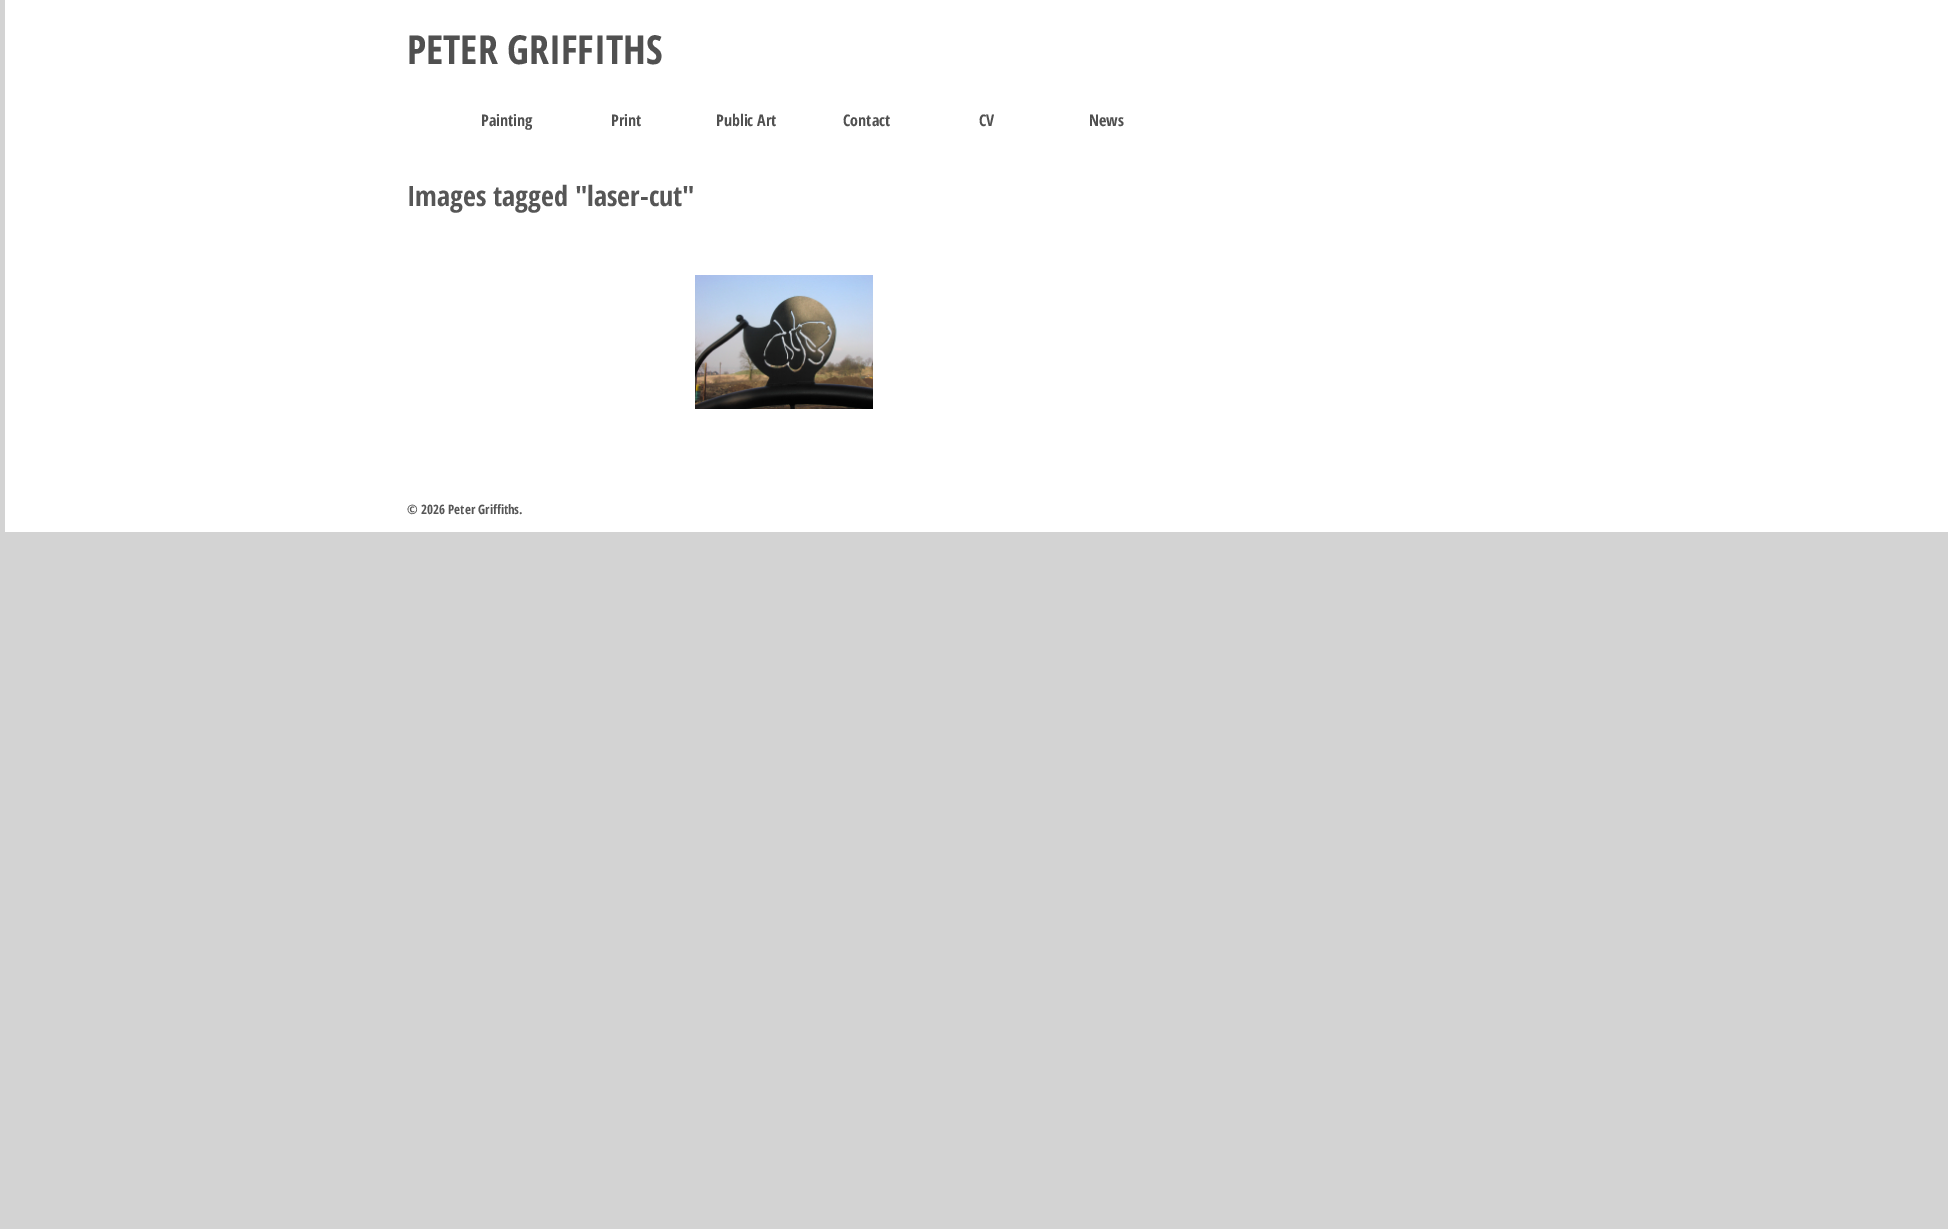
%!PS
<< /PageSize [1948 1229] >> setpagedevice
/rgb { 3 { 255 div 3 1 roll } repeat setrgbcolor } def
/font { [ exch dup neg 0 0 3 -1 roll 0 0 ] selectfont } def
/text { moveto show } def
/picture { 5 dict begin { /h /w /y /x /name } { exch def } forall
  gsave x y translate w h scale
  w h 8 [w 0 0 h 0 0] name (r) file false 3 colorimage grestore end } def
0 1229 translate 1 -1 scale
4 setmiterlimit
211 211 211 rgb
0 0 1948 1229 rectfill
255 255 255 rgb
5 0 1943 532 rectfill
(img_01.rgb) 695 275 178 134 picture
/OpenSansCondensed-Bold 40 font
80 80 80 rgb
(PETER GRIFFITHS) 407 64 text
/OpenSansCondensed-Bold 16 font
(Painting) 481 126 text
(Print) 611 126 text
(Public Art) 716 126 text
(Contact) 843 126 text
(CV) 979 126 text
(News) 1089 126 text
/OpenSansCondensed-Bold 28 font
86 86 86 rgb
(Images tagged "laser-cut") 407 206 text
/OpenSansCondensed-Bold 13 font
(© 2026 Peter Griffiths.) 407 514 text
showpage
